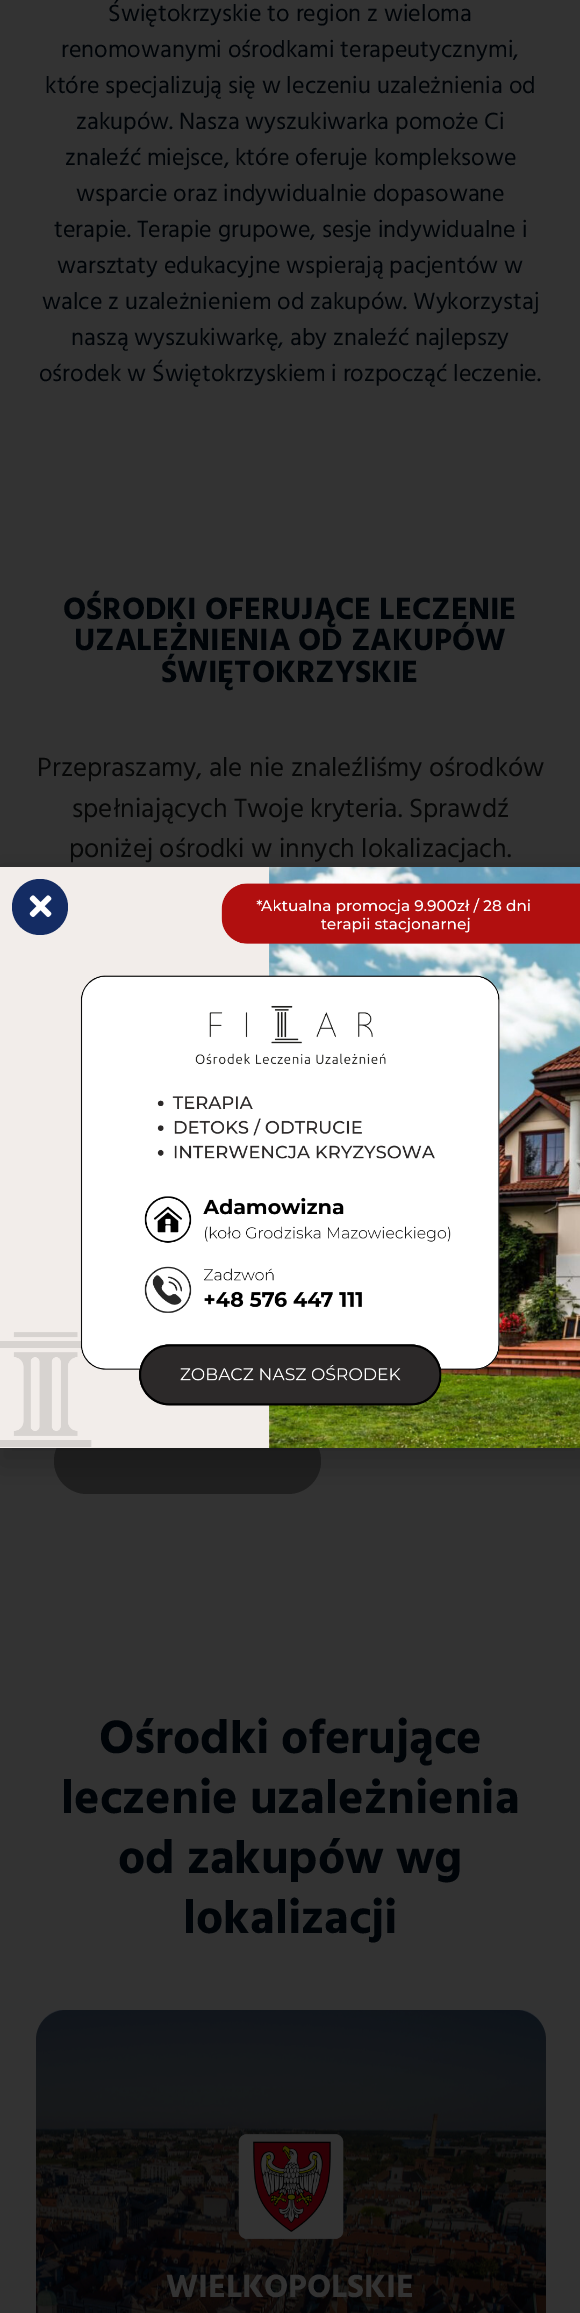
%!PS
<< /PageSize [580 2313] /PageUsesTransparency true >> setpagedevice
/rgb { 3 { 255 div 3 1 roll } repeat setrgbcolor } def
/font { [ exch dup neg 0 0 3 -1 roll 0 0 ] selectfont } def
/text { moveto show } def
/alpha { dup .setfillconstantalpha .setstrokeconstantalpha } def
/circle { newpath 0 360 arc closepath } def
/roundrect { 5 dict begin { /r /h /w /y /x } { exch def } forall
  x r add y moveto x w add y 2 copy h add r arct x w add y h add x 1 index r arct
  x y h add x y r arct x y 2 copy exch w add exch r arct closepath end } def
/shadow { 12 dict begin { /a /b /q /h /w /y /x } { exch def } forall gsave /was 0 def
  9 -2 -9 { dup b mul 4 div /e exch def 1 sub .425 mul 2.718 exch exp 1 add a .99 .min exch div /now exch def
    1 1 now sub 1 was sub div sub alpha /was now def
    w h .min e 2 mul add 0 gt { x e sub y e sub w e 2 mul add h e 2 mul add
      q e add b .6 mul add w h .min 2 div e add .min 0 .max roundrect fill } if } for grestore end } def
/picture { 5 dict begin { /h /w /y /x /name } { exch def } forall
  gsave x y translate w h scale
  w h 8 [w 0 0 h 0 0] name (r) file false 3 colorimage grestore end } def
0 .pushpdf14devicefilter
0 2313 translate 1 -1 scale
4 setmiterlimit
51 51 51 rgb
0 0 580 2313 rectfill
31 31 31 rgb
54 1428 267 66 33 roundrect fill
(img_01.rgb) 36 2010 510 303 picture
0.44 alpha
0 0 0 rgb
36 2010 510 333 30 roundrect fill
1 alpha
(img_02.rgb) 238 2133 106 107 picture
-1 875 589 589 0 17 0.2 shadow
(img_03.rgb) 0 867 580 581 picture
20 44 99 rgb
40 907 28 circle fill
(img_04.rgb) 29 895 23 22 picture
/Hind-Regular 24 font
0 4 8 rgb
(Świętokrzyskie to region z wieloma) 108 21 text
(renomowanymi ośrodkami terapeutycznymi,) 61 57 text
(które specjalizują się w leczeniu uzależnienia od) 45 93 text
(zakupów. Nasza wyszukiwarka pomoże Ci) 76 129 text
(znaleźć miejsce, które oferuje kompleksowe) 65 165 text
(wsparcie oraz indywidualnie dopasowane) 76 201 text
(terapie. Terapie grupowe, sesje indywidualne i) 54 237 text
(warsztaty edukacyjne wspierają pacjentów w) 57 273 text
(walce z uzależnieniem od zakupów. Wykorzystaj) 42 309 text
(naszą wyszukiwarkę, aby znaleźć najlepszy) 71 345 text
(ośrodek w Świętokrzyskiem i rozpocząć leczenie.) 39 381 text
/Hind-Bold 31.5 font
(OŚRODKI OFERUJĄCE LECZENIE) 63 619 text
(UZALEŻNIENIA OD ZAKUPÓW) 74 650 text
(ŚWIĘTOKRZYSKIE) 161 682 text
/Hind-Regular 27 font
6 7 7 rgb
(Przepraszamy, ale nie znaleźliśmy ośrodków) 37 776 text
(spełniających Twoje kryteria. Sprawdź) 72 817 text
(poniżej ośrodki w innych lokalizacjach.) 69 857 text
/Hind-Bold 48 font
0 4 8 rgb
(Ośrodki oferujące) 99 1753 text
(leczenie uzależnienia) 61 1813 text
(od zakupów wg) 118 1873 text
(lokalizacji) 183 1933 text
/Hind-Bold 33 font
51 51 51 rgb
(WIELKOPOLSKIE) 166 2297 text
.poppdf14devicefilter showpage
